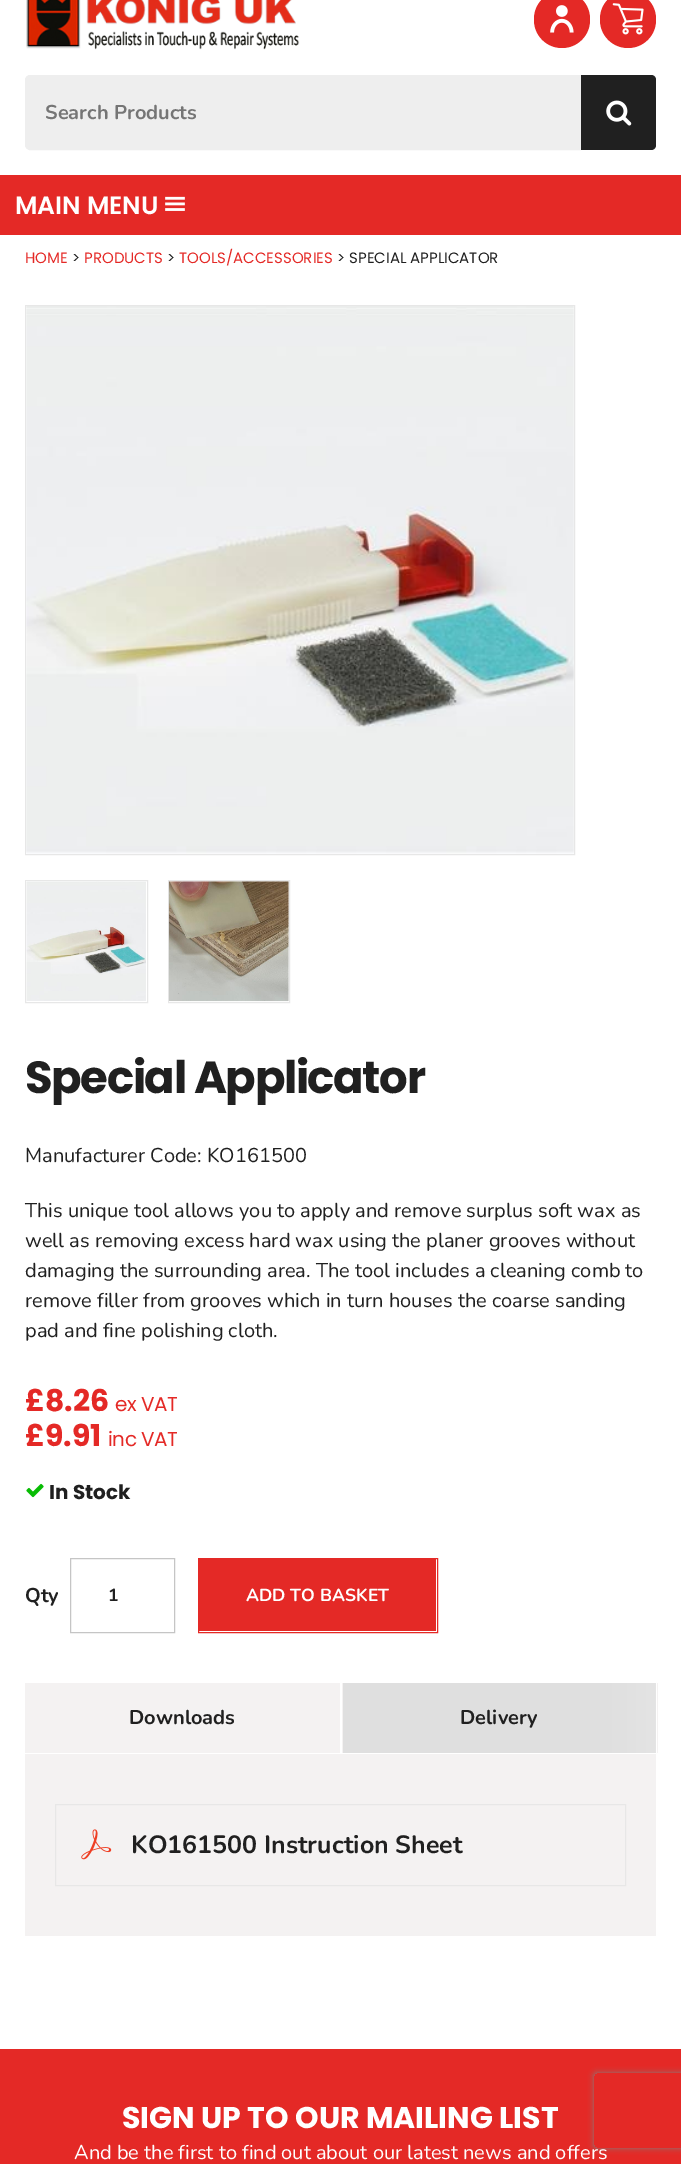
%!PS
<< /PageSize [681 2164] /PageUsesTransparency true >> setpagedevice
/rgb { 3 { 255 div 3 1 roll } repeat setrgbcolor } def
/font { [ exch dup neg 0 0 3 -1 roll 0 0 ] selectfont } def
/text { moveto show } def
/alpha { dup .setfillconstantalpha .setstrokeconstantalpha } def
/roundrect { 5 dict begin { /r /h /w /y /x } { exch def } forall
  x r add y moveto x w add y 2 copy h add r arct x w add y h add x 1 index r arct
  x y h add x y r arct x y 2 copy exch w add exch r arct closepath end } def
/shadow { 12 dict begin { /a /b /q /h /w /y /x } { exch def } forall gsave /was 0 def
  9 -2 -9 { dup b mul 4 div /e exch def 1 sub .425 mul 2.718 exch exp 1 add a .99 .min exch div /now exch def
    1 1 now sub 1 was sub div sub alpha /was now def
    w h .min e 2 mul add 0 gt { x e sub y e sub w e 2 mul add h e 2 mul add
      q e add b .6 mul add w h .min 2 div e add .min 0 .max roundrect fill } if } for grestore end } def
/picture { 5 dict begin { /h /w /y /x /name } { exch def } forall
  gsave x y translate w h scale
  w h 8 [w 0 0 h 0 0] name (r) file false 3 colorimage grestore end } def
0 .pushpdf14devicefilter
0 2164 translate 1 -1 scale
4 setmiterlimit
255 255 255 rgb
0 0 681 2164 rectfill
(img_01.rgb) 26 0 274 50 picture
228 41 38 rgb
534 -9 56 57 28 roundrect fill
(img_02.rgb) 550 5 24 28 picture
600 -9 56 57 28 roundrect fill
(img_03.rgb) 612 3 32 32 picture
238 238 238 rgb
30 75.5 moveto 550.5 0 rlineto 0 74 rlineto -550.5 0 rlineto -2.5 0 -4.5 -2 -4.5 -4.5 rcurveto 0 -65 rlineto 0 -2.5 2 -4.5 4.5 -4.5 rcurveto closepath gsave fill grestore
stroke
32 32 32 rgb
581 75 moveto 70 0 rlineto 3 0 5 2 5 5 rcurveto 0 65 rlineto 0 3 -2 5 -5 5 rcurveto -70 0 rlineto closepath fill
(img_04.rgb) 606 100 26 26 picture
228 41 38 rgb
0 175 681 60 rectfill
(img_05.rgb) 165 196 20 15 picture
231 231 231 rgb
25.5 305.5 549 549 rectstroke
(img_06.rgb) 26 306 548 548 picture
25.5 880.5 122 122 rectstroke
(img_07.rgb) 26 881 120 120 picture
168.5 880.5 121 122 rectstroke
(img_08.rgb) 168 881 121 121 picture
(img_09.rgb) 26 1483 18 15 picture
197 197 197 rgb
70.5 1558.5 104 74 rectstroke
228 41 38 rgb
199 1559 237 72 rectfill
198.5 1558.5 239 74 rectstroke
244 242 242 rgb
25 1683 633 70 rectfill
255 255 255 rgb
340 1683 2 71 rectfill
656 1683 1 71 rectfill
gsave 343 1683 moveto 313 0 rlineto 0 70 rlineto -313 0 rlineto closepath clip newpath
<< /ShadingType 2 /ColorSpace /DeviceRGB /Coords [343 1718 656 1718] /Extend [true true] /Function << /FunctionType 3 /Domain [0 1] /Functions [<< /FunctionType 2 /Domain [0 1] /C0 [0.875 0.875 0.875] /C1 [0.875 0.875 0.875] /N 1 >> << /FunctionType 2 /Domain [0 1] /C0 [0.875 0.875 0.875] /C1 [0.894 0.894 0.894] /N 1 >>] /Bounds [0.85] /Encode [0 1 0 1] >> >> shfill grestore
244 242 242 rgb
25 1754 631 182 rectfill
231 231 231 rgb
55.5 1804.5 570 81 rectstroke
(img_10.rgb) 81 1829 31 31 picture
228 41 38 rgb
0 2049 681 115 rectfill
gsave
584 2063 moveto 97 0 rlineto 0 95 rlineto -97 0 rlineto closepath 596.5 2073 moveto 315 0 rlineto 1.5 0 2.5 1 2.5 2.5 rcurveto 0 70 rlineto 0 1.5 -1 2.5 -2.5 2.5 rcurveto -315 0 rlineto -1.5 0 -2.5 -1 -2.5 -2.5 rcurveto 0 -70 rlineto 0 -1.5 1 -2.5 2.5 -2.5 rcurveto closepath eoclip newpath
128 128 128 rgb
594 2073 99 75 2.5 3 1 shadow
grestore
/Nunito-Bold 20 font
117 117 117 rgb
(Search Products) 45 119 text
/Poppins-SemiBold 25 font
255 255 255 rgb
(MAIN MENU) 15 214 text
/Poppins-Regular 15 font
228 41 38 rgb
(HOME) 25 263 text
32 32 32 rgb
(>) 72 263 text
228 41 38 rgb
(PRODUCTS) 84 263 text
32 32 32 rgb
(>) 167 263 text
228 41 38 rgb
(TOOLS/ACCESSORIES) 179 263 text
32 32 32 rgb
(> SPECIAL APPLICATOR) 337 263 text
/Poppins-Bold 45 font
25 1093 moveto -1.4 0 (Special Applicator) ashow
/Nunito-Regular 20 font
(Manufacturer Code: KO161500) 25 1162 text
(This unique tool allows you to apply and remove surplus soft wax as) 25 1217 text
(well as removing excess hard wax using the planer grooves without) 25 1247 text
(damaging the surrounding area. The tool includes a cleaning comb to) 25 1277 text
(remove filler from grooves which in turn houses the coarse sanding) 25 1307 text
(pad and fine polishing cloth.) 25 1337 text
/Poppins-Bold 30 font
228 41 38 rgb
(£8.26) 25 1411 text
/Poppins-Regular 20 font
115 1411 moveto -0.5 0 (ex VAT) ashow
/Poppins-Bold 30 font
(£9.91) 25 1446 text
/Poppins-Regular 20 font
108 1446 moveto -0.5 0 (inc VAT) ashow
/Poppins-Bold 20 font
32 32 32 rgb
(In Stock) 49 1499 text
/Nunito-Bold 20 font
(Qty) 25 1602 text
/Nunito-Bold 17.5 font
(1) 108 1601 text
255 255 255 rgb
(ADD TO BASKET) 246 1601 text
/Nunito-Bold 20 font
32 32 32 rgb
(Downloads) 129 1724 text
(Delivery) 460 1724 text
/Nunito-Bold 25 font
(KO161500 Instruction Sheet) 131 1853 text
/Poppins-Bold 30 font
255 255 255 rgb
(SIGN UP TO OUR MAILING LIST) 122 2128 text
/Nunito-Regular 20 font
(And be the first to find out about our latest news and offers) 74 2159 text
.poppdf14devicefilter showpage
